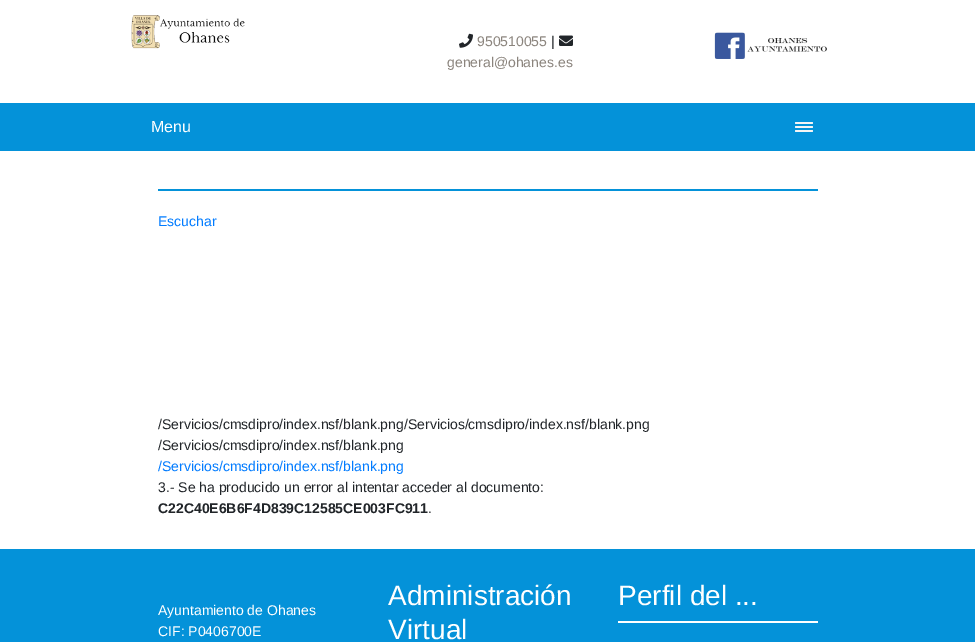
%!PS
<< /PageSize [975 642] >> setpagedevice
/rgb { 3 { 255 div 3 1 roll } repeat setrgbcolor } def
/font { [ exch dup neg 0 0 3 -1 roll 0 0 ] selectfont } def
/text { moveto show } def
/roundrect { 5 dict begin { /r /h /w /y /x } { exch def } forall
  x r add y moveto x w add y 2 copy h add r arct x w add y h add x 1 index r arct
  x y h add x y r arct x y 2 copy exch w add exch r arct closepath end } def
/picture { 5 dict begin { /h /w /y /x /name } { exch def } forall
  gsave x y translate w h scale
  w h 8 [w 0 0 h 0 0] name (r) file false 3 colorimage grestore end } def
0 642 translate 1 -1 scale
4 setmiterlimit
255 255 255 rgb
0 0 975 642 rectfill
(img_01.rgb) 131 15 114 34 picture
(img_02.rgb) 459 33 14 15 picture
(img_03.rgb) 559 35 14 11 picture
(img_04.rgb) 714 32 113 27 picture
4 146 217 rgb
0 103 975 48 rectfill
245 245 245 rgb
795 122 18 2 1 roundrect fill
795 126 18 2 1 roundrect fill
795 130 18 2 1 roundrect fill
4 146 217 rgb
158 189 660 2 rectfill
0 549 975 93 rectfill
255 255 255 rgb
618 621 200 2 rectfill
/LiberationSans-Regular 14 font
139 132 125 rgb
(950510055) 477 46 text
33 37 41 rgb
(|) 551 46 text
139 132 125 rgb
(general@ohanes.es) 447 67 text
/LiberationSans-Regular 16 font
255 255 255 rgb
(Menu) 151 132 text
/LiberationSans-Regular 14 font
0 123 255 rgb
(Escuchar) 158 226 text
33 37 41 rgb
(/Servicios/cmsdipro/index.nsf/blank.png/Servicios/cmsdipro/index.nsf/blank.png) 158 429 text
(/Servicios/cmsdipro/index.nsf/blank.png) 158 450 text
0 123 255 rgb
(/Servicios/cmsdipro/index.nsf/blank.png) 158 471 text
33 37 41 rgb
(3.- Se ha producido un error al intentar acceder al documento:) 158 492 text
/LiberationSans-Bold 14 font
(C22C40E6B6F4D839C12585CE003FC911) 158 513 text
/LiberationSans-Regular 14 font
(.) 428 513 text
/LiberationSans-Regular 28 font
255 255 255 rgb
(Administración) 388 605 text
(Virtual) 388 639 text
(Perfil del ...) 618 605 text
/LiberationSans-Regular 14 font
(Ayuntamiento de Ohanes) 158 615 text
(CIF: P0406700E) 158 636 text
showpage
